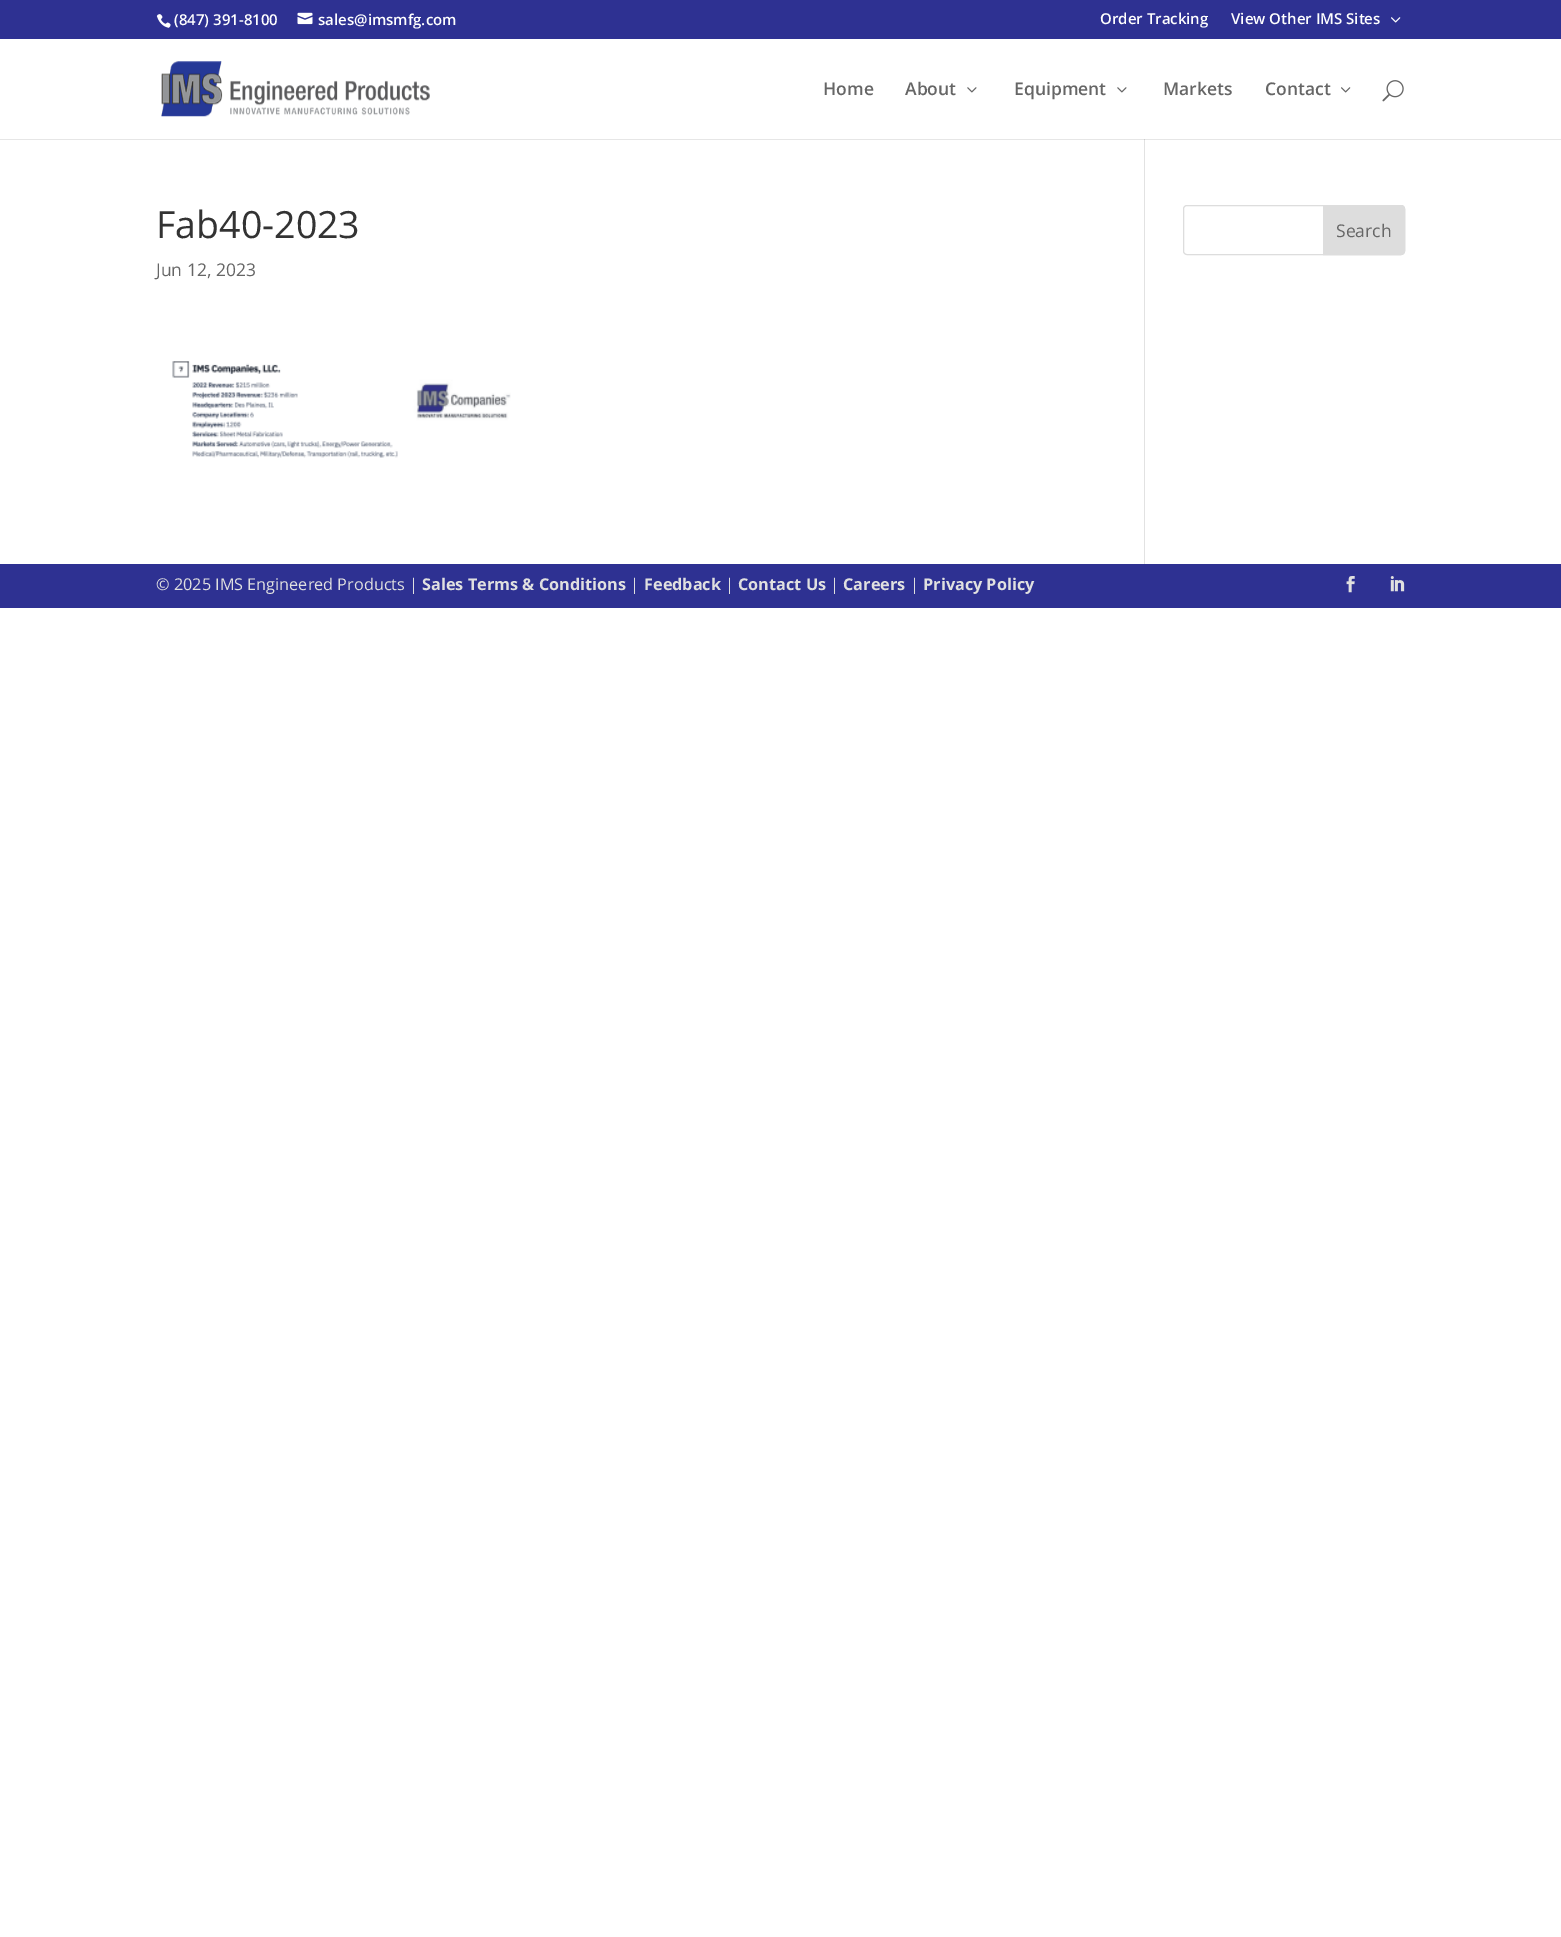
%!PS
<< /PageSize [1561 1937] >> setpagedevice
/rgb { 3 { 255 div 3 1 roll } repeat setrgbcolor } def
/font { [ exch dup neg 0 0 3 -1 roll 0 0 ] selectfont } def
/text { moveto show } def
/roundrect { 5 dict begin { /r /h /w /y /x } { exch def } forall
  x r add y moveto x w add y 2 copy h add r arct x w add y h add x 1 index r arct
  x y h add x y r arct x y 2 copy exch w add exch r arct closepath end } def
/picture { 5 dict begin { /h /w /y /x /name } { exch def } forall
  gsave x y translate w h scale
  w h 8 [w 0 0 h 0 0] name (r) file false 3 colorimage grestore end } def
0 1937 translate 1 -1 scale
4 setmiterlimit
255 255 255 rgb
0 0 1561 1937 rectfill
230 230 230 rgb
0 139 1561 1 rectfill
46 49 146 rgb
0 0 1561 39 rectfill
(img_01.rgb) 156 14 15 14 picture
(img_02.rgb) 297 12 16 13 picture
(img_03.rgb) 1391 17 10 6 picture
226 226 226 rgb
1144 133 1 431 rectfill
255 255 255 rgb
1144 133 1 6 rectfill
(img_04.rgb) 161 61 269 56 picture
(img_05.rgb) 967 87 10 6 picture
(img_05.rgb) 1117 87 10 6 picture
(img_06.rgb) 1341 87 10 6 picture
(img_07.rgb) 1382 80 22 22 picture
203 203 203 rgb
1144 139 1 1 rectfill
(img_08.rgb) 172 361 339 97 picture
221 221 221 rgb
1183.5 205.5 221 49 3.5 roundrect stroke
1323.5 205.5 moveto 77.5 0 rlineto 2 0 3.5 1.5 3.5 3.5 rcurveto 0 42 rlineto 0 2 -1.5 3.5 -3.5 3.5 rcurveto -77.5 0 rlineto closepath gsave fill grestore
stroke
46 49 146 rgb
0 564 1561 44 rectfill
(img_09.rgb) 1346 576 9 17 picture
(img_10.rgb) 1390 576 15 16 picture
/OpenSans-SemiBold 15 font
255 255 255 rgb
(\(847\) 391-8100) 174 25 text
(sales@imsmfg.com) 318 25 text
(Order Tracking) 1100 24 text
(View Other IMS Sites) 1231 24 text
/OpenSans-SemiBold 17.5 font
102 102 102 rgb
(Home) 823 95 text
(About) 905 95 text
(Equipment) 1014 95 text
(Markets) 1163 95 text
(Contact) 1265 95 text
/OpenSans-Regular 37.5 font
51 51 51 rgb
(Fab40-2023) 156 238 text
/OpenSans-Regular 17.5 font
102 102 102 rgb
(Jun 12, 2023) 156 276 text
(Search) 1336 237 text
/OpenSans-Regular 16.25 font
224 224 224 rgb
(© 2025 IMS Engineered Products |) 156 590 text
/OpenSans-Bold 16.25 font
(Sales Terms & Conditions) 422 590 text
/OpenSans-Regular 16.25 font
(|) 630 590 text
/OpenSans-Bold 16.25 font
(Feedback) 644 590 text
/OpenSans-Regular 16.25 font
(|) 725 590 text
/OpenSans-Bold 16.25 font
(Contact Us) 738 590 text
/OpenSans-Regular 16.25 font
(|) 830 590 text
/OpenSans-Bold 16.25 font
(Careers) 843 590 text
/OpenSans-Regular 16.25 font
(|) 910 590 text
/OpenSans-Bold 16.25 font
(Privacy Policy) 923 590 text
showpage
